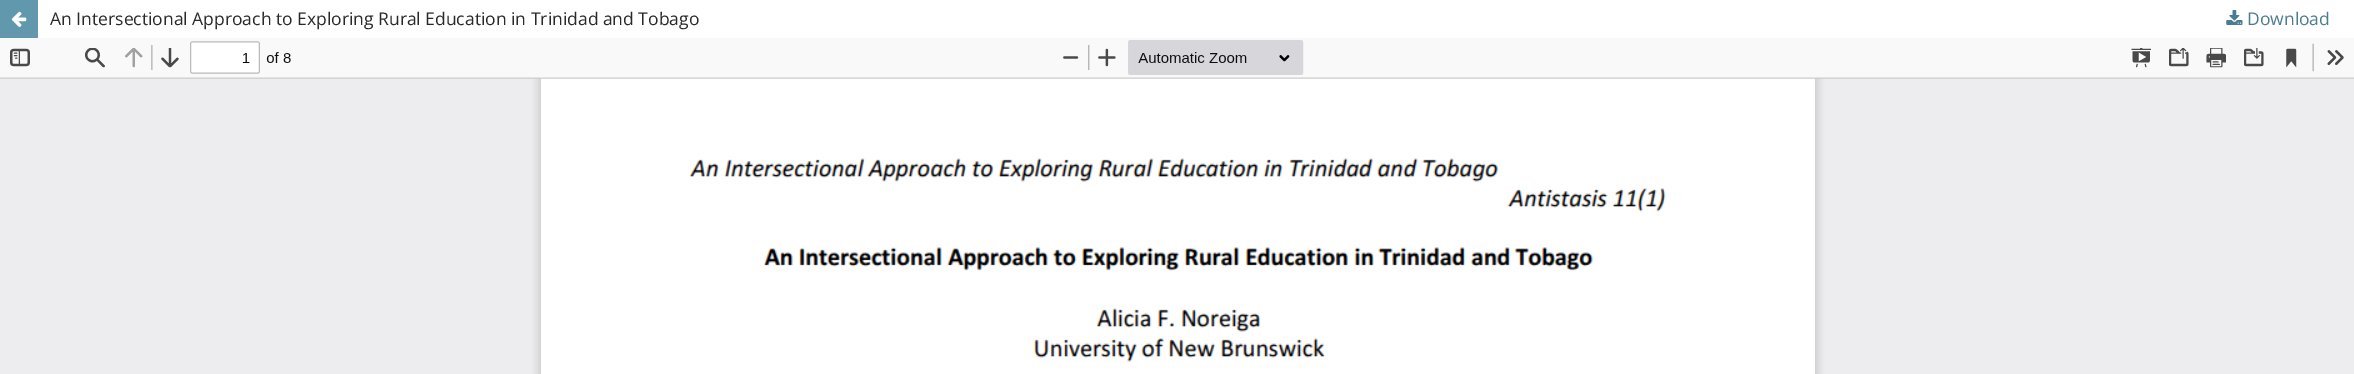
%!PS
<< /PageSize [2354 374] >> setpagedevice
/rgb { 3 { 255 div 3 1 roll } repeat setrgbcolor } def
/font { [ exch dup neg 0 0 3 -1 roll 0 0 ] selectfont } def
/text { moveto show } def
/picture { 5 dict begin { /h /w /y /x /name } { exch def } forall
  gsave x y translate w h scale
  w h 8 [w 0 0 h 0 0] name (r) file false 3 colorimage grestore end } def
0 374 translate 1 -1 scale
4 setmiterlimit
255 255 255 rgb
0 0 2354 374 rectfill
98 152 174 rgb
0 0 38 38 rectfill
(img_01.rgb) 11 11 16 16 picture
(img_02.rgb) 2226 10 17 15 picture
(img_03.rgb) 0 38 2354 336 picture
/OpenSans-Regular 17.5 font
41 41 41 rgb
(An Intersectional Approach to Exploring Rural Education in Trinidad and Tobago) 50 25 text
75 125 146 rgb
(Download) 2247 25 text
showpage
